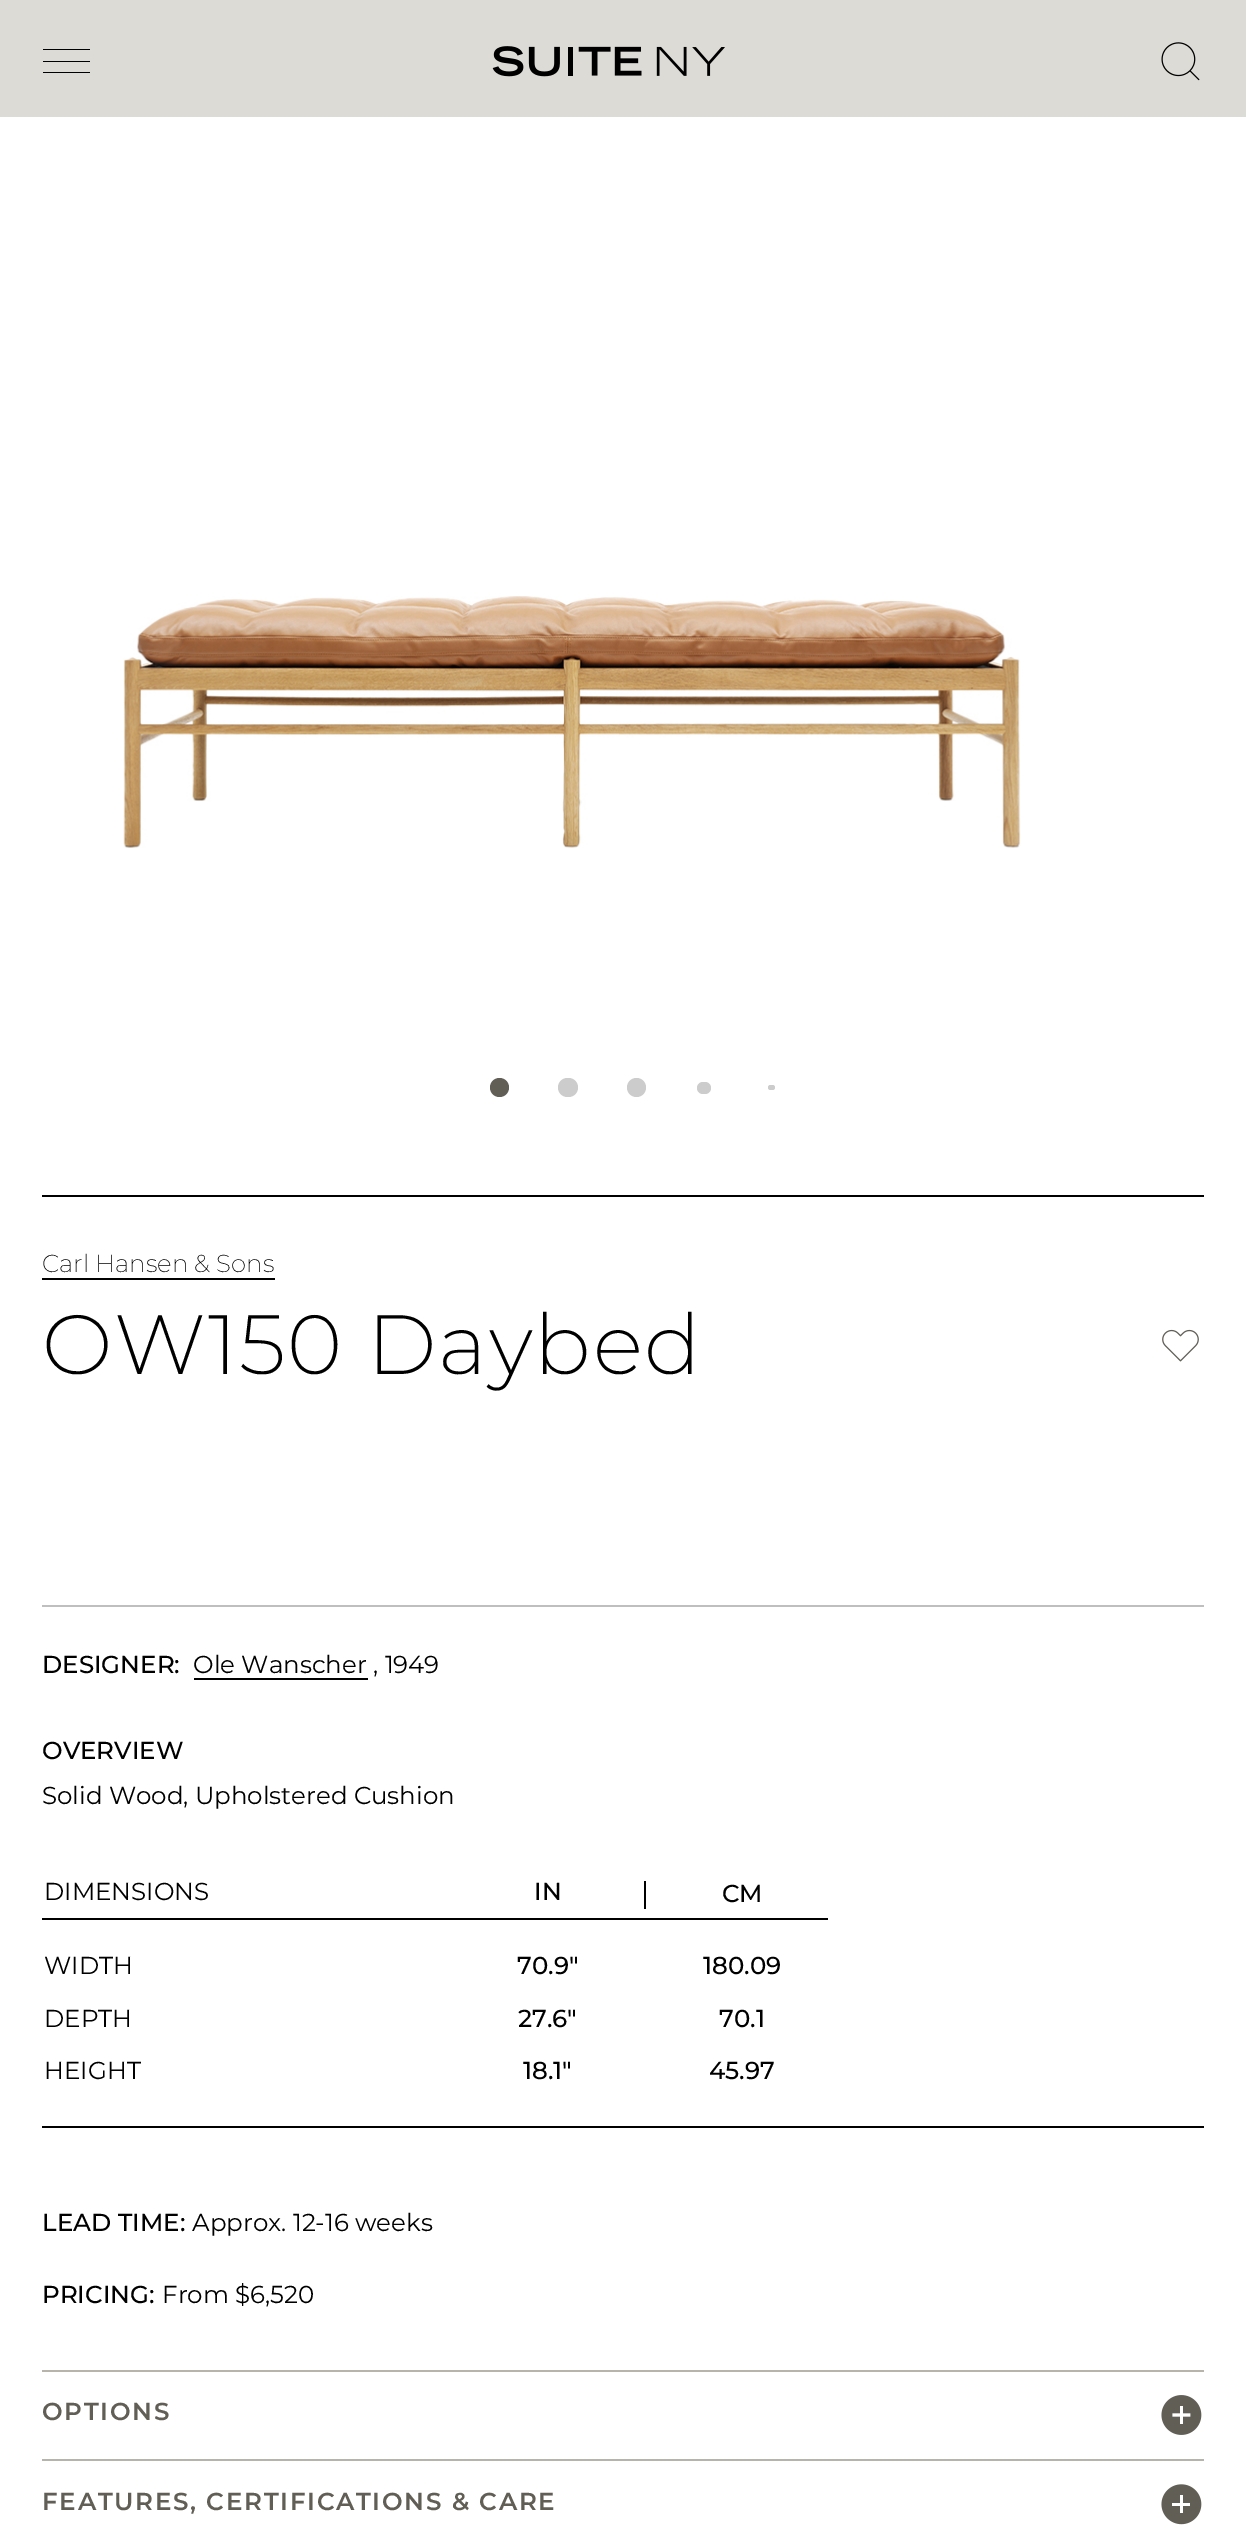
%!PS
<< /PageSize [1246 2543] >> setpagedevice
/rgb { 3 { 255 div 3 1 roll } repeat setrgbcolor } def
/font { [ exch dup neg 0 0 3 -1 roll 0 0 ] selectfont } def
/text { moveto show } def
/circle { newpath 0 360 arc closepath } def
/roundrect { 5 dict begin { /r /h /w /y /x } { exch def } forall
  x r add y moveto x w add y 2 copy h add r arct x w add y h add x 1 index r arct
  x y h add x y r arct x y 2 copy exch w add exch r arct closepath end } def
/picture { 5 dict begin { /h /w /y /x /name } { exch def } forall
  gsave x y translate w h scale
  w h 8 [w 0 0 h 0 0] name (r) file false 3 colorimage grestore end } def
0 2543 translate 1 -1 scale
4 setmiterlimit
255 255 255 rgb
0 0 1246 2543 rectfill
221 219 213 rgb
0 0 1246 117 rectfill
0 0 0 rgb
43 49 47 1 rectfill
43 61 47 1 rectfill
43 72 47 1 rectfill
(img_01.rgb) 492 46 233 31 picture
(img_02.rgb) 1161 42 39 39 picture
(img_03.rgb) 123 596 898 252 picture
97 94 86 rgb
499.5 1087.5 9.5 circle fill
204 204 204 rgb
558 1078 20 19 9.5 roundrect fill
636.5 1087.5 9.5 circle fill
697 1082 14 12 6 roundrect fill
768 1085 7 5 2.5 roundrect fill
0 0 0 rgb
42 1195 1162 2 rectfill
42 1278 233 2 rectfill
(img_04.rgb) 1162 1329 37 33 picture
191 191 191 rgb
42 1605 1162 2 rectfill
0 0 0 rgb
194 1678 174 2 rectfill
42 1918 786 2 rectfill
644 1881 2 28 rectfill
42 2126 1162 2 rectfill
183 180 171 rgb
42 2370 1162 2 rectfill
(img_05.rgb) 1161 2395 41 40 picture
42 2459 1162 2 rectfill
(img_06.rgb) 1161 2484 41 41 picture
/Montserrat-ExtraLight 24.5 font
0 0 0 rgb
(Carl Hansen & Sons) 42 1272 text
/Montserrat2-ExtraLight 84 font
42 1374 moveto 1.75 0 (OW150 Daybed) ashow
/Montserrat-Medium 24.5 font
(DESIGNER:) 42 1673 text
/Montserrat-Regular 24.5 font
(Ole Wanscher , 1949) 193 1673 text
/Montserrat-Medium 24.5 font
(OVERVIEW) 42 1759 text
/Montserrat-Regular 24.5 font
(Solid Wood, Upholstered Cushion) 42 1804 text
(DIMENSIONS) 44 1900 text
/Montserrat-Medium 24.5 font
(IN) 534 1900 text
(CM) 722 1902 text
/Montserrat-Regular 24.5 font
(WIDTH) 44 1974 text
/Montserrat-Medium 24.5 font
(70.9") 517 1974 text
(180.09) 703 1974 text
/Montserrat-Regular 24.5 font
(DEPTH) 44 2027 text
/Montserrat-Medium 24.5 font
(27.6") 518 2027 text
(70.1) 719 2027 text
/Montserrat-Regular 24.5 font
(HEIGHT) 44 2079 text
/Montserrat-Medium 24.5 font
(18.1") 523 2079 text
(45.97) 709 2079 text
(LEAD TIME:) 42 2231 text
/Montserrat-Regular 24.5 font
(Approx. 12-16 weeks) 192 2231 text
/Montserrat-Medium 24.5 font
(PRICING:) 42 2303 text
/Montserrat-Regular 24.5 font
(From $6,520) 162 2303 text
/Montserrat-SemiBold 24.5 font
97 94 86 rgb
42 2420 moveto 1.75 0 (OPTIONS) ashow
42 2510 moveto 1.75 0 (FEATURES, CERTIFICATIONS & CARE) ashow
showpage
